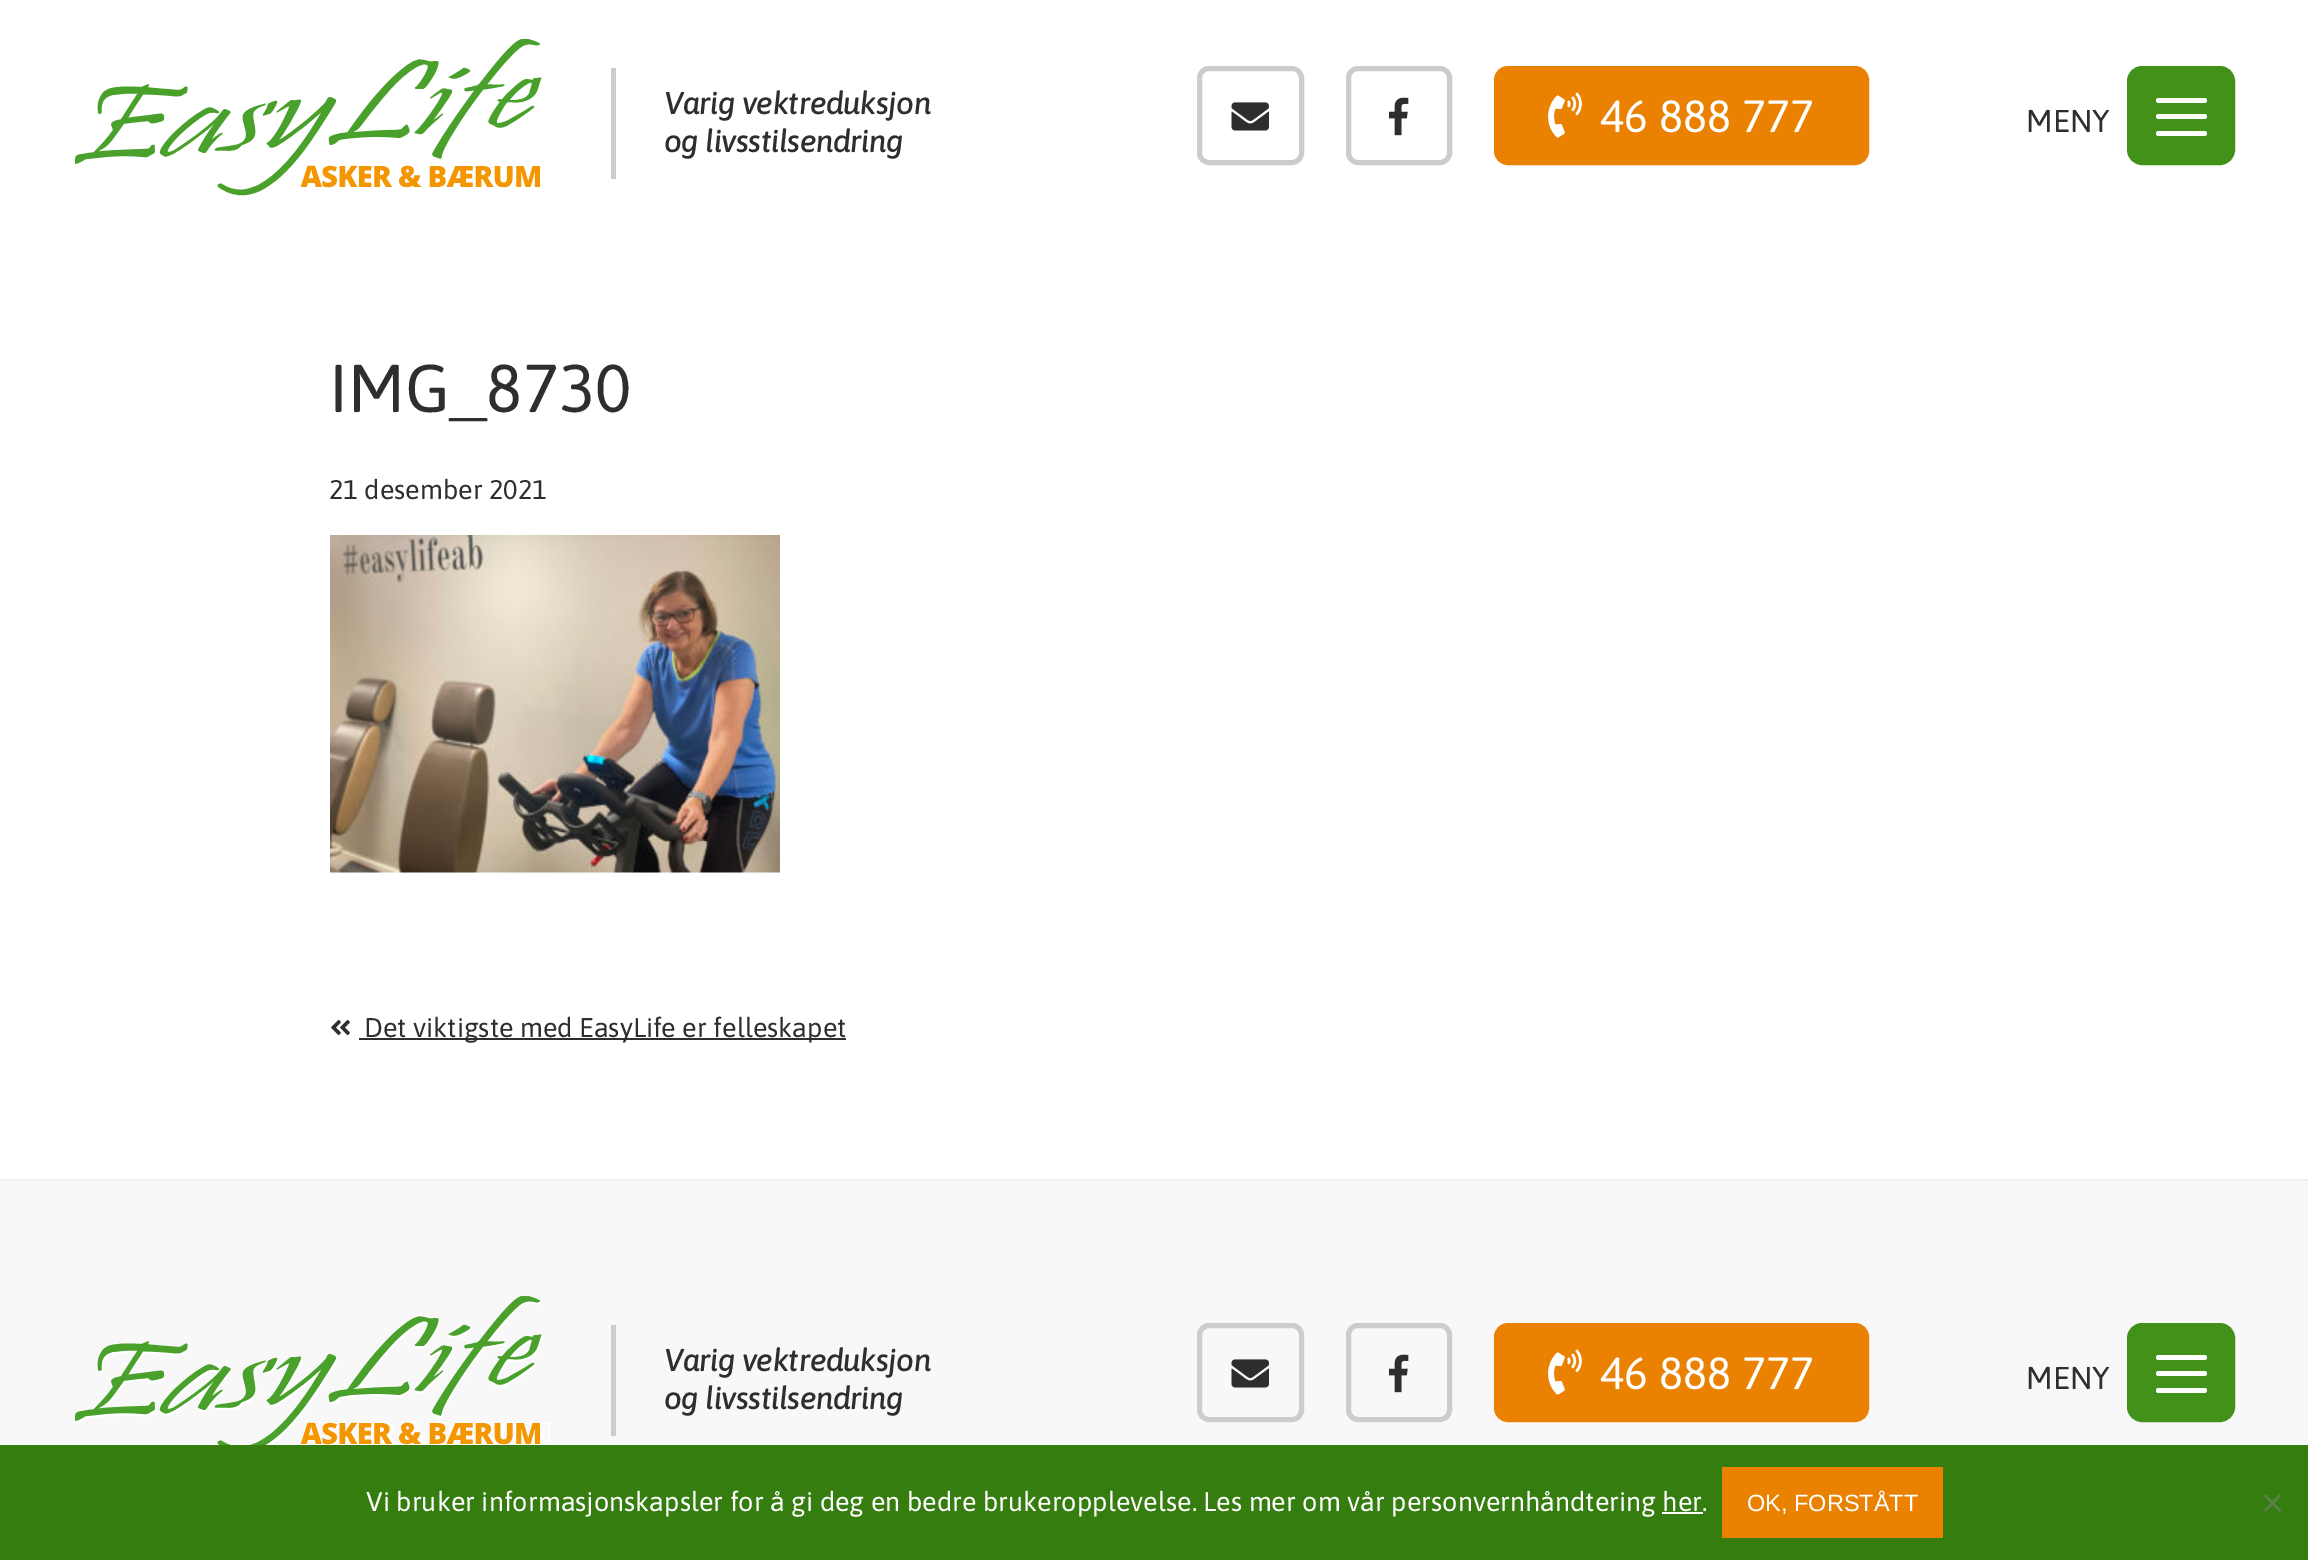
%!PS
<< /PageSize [2308 1560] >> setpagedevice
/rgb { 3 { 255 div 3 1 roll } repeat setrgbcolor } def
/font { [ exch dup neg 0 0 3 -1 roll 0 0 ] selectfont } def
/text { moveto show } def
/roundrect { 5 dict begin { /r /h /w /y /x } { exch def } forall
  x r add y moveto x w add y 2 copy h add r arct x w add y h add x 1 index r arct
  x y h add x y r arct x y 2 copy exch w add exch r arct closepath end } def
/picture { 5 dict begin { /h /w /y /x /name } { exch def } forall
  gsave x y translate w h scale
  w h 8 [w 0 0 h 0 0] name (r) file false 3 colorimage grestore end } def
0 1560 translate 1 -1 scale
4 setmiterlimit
255 255 255 rgb
0 0 2308 1560 rectfill
(img_01.rgb) 75 39 467 157 picture
204 204 204 rgb
611 68 5 111 rectfill
5 setlinewidth
1199.5 68.5 102 94 9.5 roundrect stroke
(img_02.rgb) 1231 102 38 29 picture
1348.5 68.5 101 94 9.5 roundrect stroke
(img_03.rgb) 1389 97 20 39 picture
235 129 0 rgb
1495.5 67.5 372 96 12.5 roundrect gsave fill grestore
3 setlinewidth
stroke
(img_04.rgb) 1548 92 34 46 picture
66 145 24 rgb
2128.5 67.5 105 96 13.5 roundrect gsave fill grestore
stroke
255 255 255 rgb
2156 98 51 5 2.5 roundrect fill
2156 114 51 5 2.5 roundrect fill
2156 131 51 5 2.5 roundrect fill
(img_05.rgb) 330 535 450 338 picture
(img_06.rgb) 331 1020 19 15 picture
46 46 45 rgb
359 1038 487 2 rectfill
248 248 248 rgb
0 1181 2308 264 rectfill
238 238 238 rgb
0 1179 2308 2 rectfill
(img_07.rgb) 75 1296 475 149 picture
204 204 204 rgb
611 1325 5 111 rectfill
5 setlinewidth
1199.5 1325.5 102 94 9.5 roundrect stroke
(img_08.rgb) 1231 1359 38 29 picture
1348.5 1325.5 101 94 9.5 roundrect stroke
(img_09.rgb) 1389 1354 20 39 picture
235 129 0 rgb
1495.5 1324.5 372 96 12.5 roundrect gsave fill grestore
3 setlinewidth
stroke
(img_04.rgb) 1548 1349 34 46 picture
66 145 24 rgb
2128.5 1324.5 105 96 13.5 roundrect gsave fill grestore
stroke
255 255 255 rgb
2156 1355 51 5 2.5 roundrect fill
2156 1371 51 5 2.5 roundrect fill
2156 1388 51 5 2.5 roundrect fill
53 125 15 rgb
0 1445 2308 115 rectfill
255 255 255 rgb
1662 1512 41 2 rectfill
235 129 0 rgb
1722 1467 221 71 rectfill
91 127 72 rgb
2279.5 1494 moveto 2 2 rlineto -16 16 rlineto -2 -2 rlineto closepath fill
2263.5 1496 moveto 2 -2 rlineto 16 16 rlineto -2 2 rlineto closepath fill
/Asap-MediumItalic 31.5 font
46 46 45 rgb
664 114 moveto -0.6 0 (Varig vektreduksjon) ashow
664 152 moveto -0.6 0 (og livsstilsendring) ashow
/Asap-Regular 45 font
255 255 255 rgb
(46 888 777) 1600 132 text
/Asap-Regular 31.5 font
46 46 45 rgb
(MENY) 2026 132 text
/Asap-Regular 67.5 font
(IMG_8730) 329 412 text
/Asap-Regular 27 font
(21 desember 2021) 329 499 text
(Det viktigste med EasyLife er felleskapet) 364 1037 text
/Asap-MediumItalic 31.5 font
664 1371 moveto -0.6 0 (Varig vektreduksjon) ashow
664 1409 moveto -0.6 0 (og livsstilsendring) ashow
/Asap-Regular 45 font
255 255 255 rgb
(46 888 777) 1600 1389 text
/Asap-Regular 31.5 font
46 46 45 rgb
(MENY) 2026 1389 text
/Asap-Regular 27 font
255 255 255 rgb
(Vi bruker informasjonskapsler for å gi deg en bedre brukeropplevelse. Les mer om vår personvernhåndtering her) 366 1511 text
(.) 1702 1511 text
/LiberationSans-Regular 23.5 font
(OK, FORSTÅTT) 1747 1511 text
showpage
